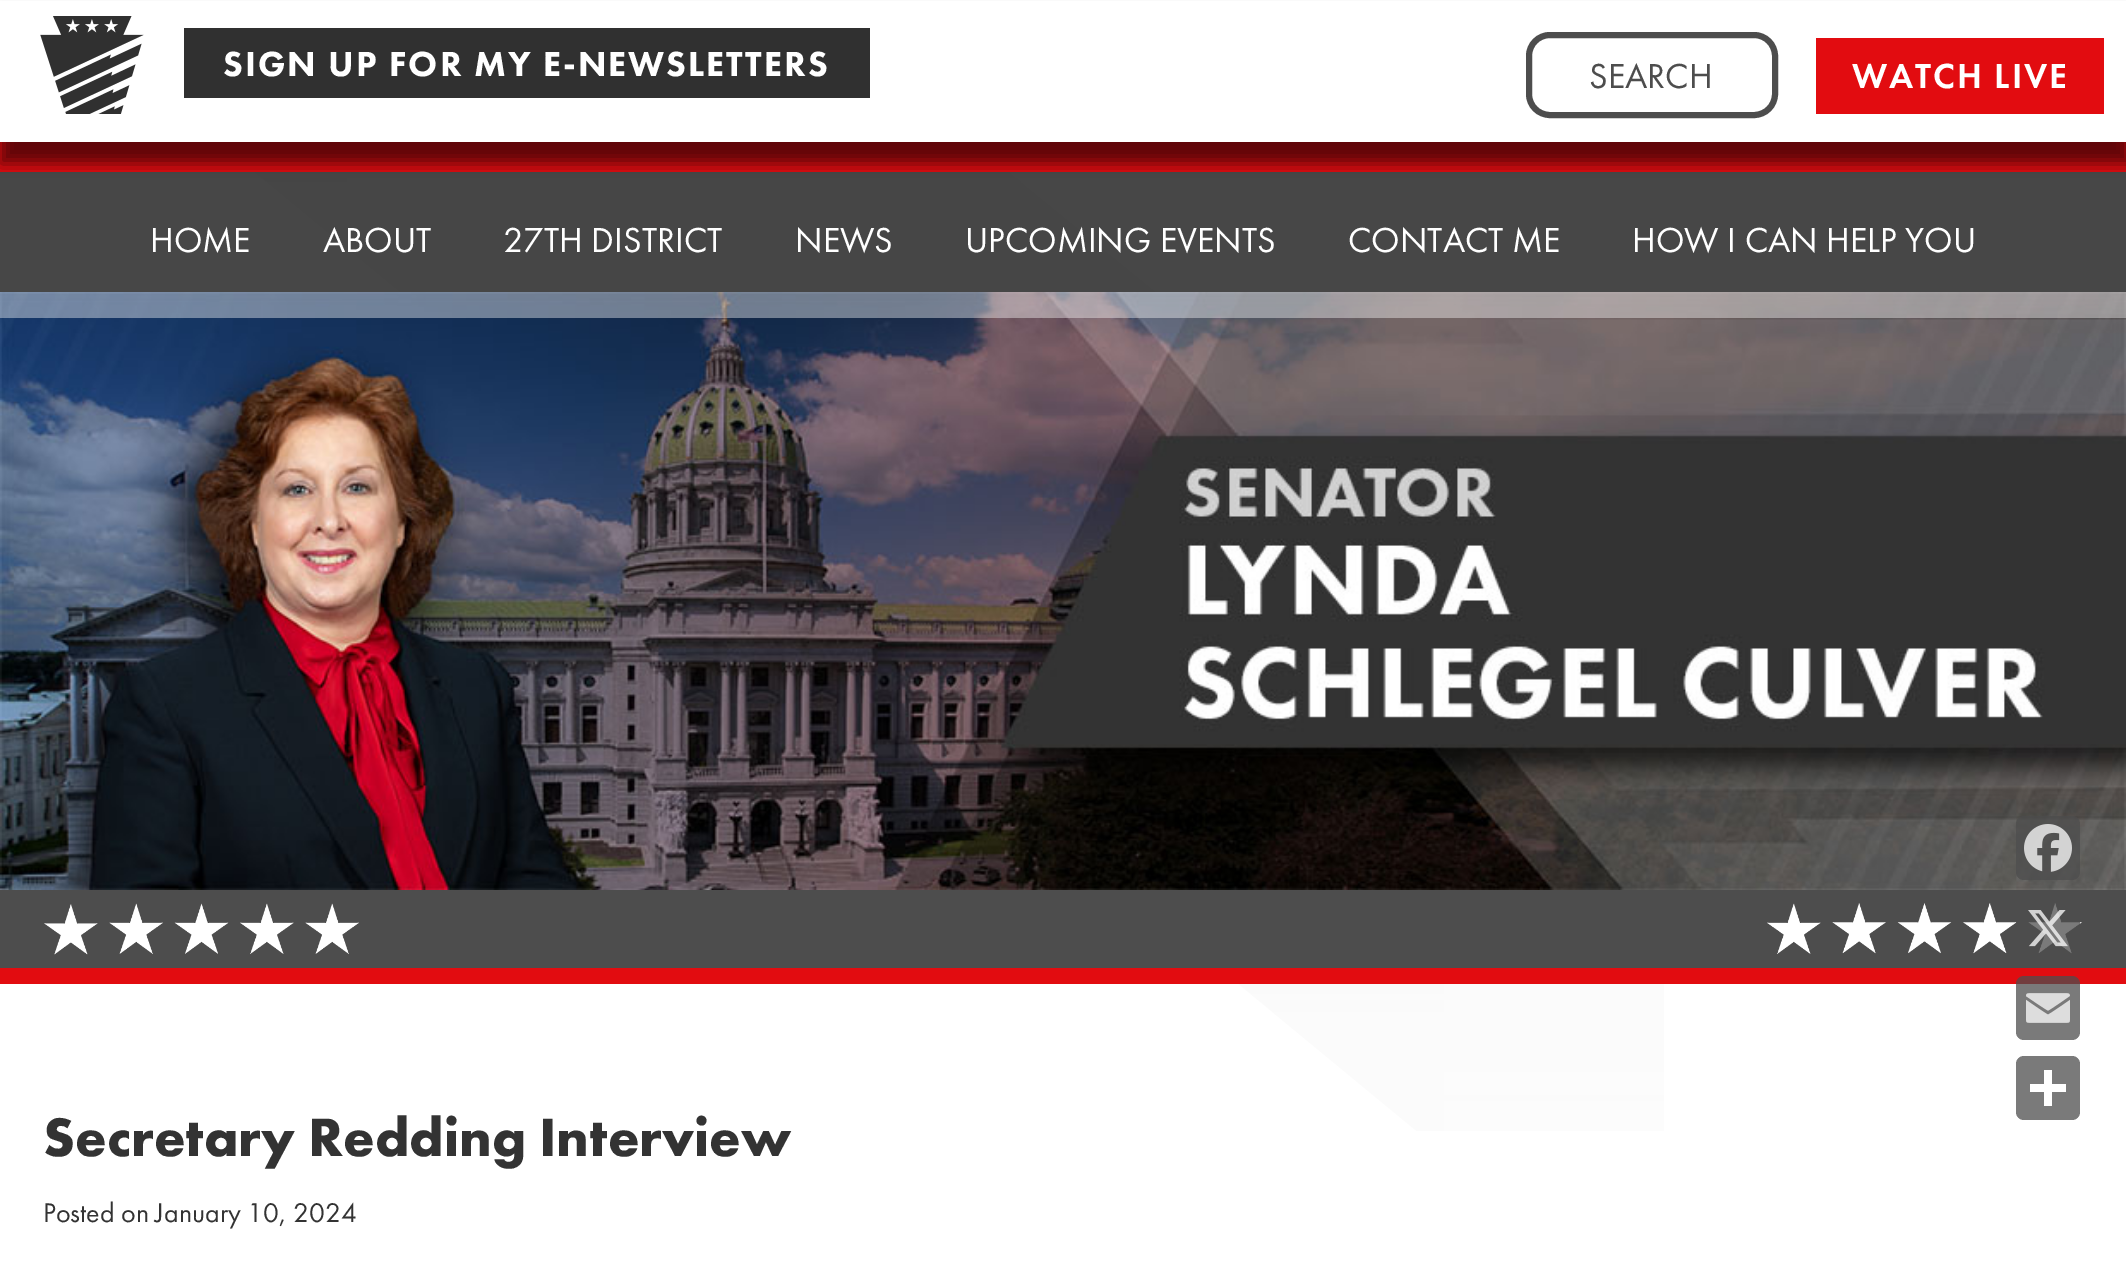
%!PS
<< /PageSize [2126 1279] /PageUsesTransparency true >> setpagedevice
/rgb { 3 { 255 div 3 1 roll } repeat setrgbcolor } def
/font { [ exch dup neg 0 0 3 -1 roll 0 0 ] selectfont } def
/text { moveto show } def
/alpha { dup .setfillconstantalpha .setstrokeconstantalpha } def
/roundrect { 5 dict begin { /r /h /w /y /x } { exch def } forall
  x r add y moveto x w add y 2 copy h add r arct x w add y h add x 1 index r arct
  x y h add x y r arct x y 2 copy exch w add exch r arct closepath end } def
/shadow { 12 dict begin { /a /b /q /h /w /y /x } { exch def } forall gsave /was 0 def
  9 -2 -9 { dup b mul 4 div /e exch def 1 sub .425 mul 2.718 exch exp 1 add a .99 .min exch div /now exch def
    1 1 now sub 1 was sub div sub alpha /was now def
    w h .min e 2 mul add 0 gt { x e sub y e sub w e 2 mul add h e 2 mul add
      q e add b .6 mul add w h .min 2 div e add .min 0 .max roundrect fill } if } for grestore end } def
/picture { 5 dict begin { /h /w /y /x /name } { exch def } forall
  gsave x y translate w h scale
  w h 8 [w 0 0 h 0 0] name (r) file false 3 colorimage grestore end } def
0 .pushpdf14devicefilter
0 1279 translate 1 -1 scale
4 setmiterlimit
255 255 255 rgb
0 0 2126 1279 rectfill
(img_01.rgb) 51 172 1613 959 picture
226 12 16 rgb
0 142 2126 30 rectfill
0 0 0 rgb
0 18 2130 146 0 8 0.59 shadow
255 255 255 rgb
0 1 2126 141 rectfill
(img_02.rgb) 40 16 104 98 picture
48 48 48 rgb
184 28 686 70 rectfill
77 77 77 rgb
6 setlinewidth
1529 35 246 80 21 roundrect stroke
226 12 16 rgb
1816 38 288 76 rectfill
0.1 alpha
255 255 255 rgb
255 172 754 2 rectfill
0.9 alpha
51 51 51 rgb
0 172 2126 120 rectfill
1 alpha
(img_03.rgb) 0 292 2126 598 picture
0.4 alpha
255 255 255 rgb
0 292 2126 26 rectfill
1 alpha
226 12 16 rgb
0 968 2126 16 rectfill
(img_04.rgb) 0 890 2126 78 picture
0.75 alpha
77 77 77 rgb
2016 816 64 64 8 roundrect fill
1 alpha
(img_05.rgb) 2024 824 48 48 picture
0.75 alpha
2016 896 64 64 8 roundrect fill
1 alpha
(img_06.rgb) 2028 910 40 37 picture
0.75 alpha
2016 976 64 64 8 roundrect fill
1 alpha
(img_07.rgb) 2026 993 44 30 picture
122 122 122 rgb
2016 1056 64 64 8 roundrect fill
255 255 255 rgb
2044 1070 8 36 rectfill
2030 1084 36 8 rectfill
/FuturaPT-Black 36 font
223 76 moveto 2 0 (SIGN UP FOR MY E-NEWSLETTERS) ashow
/FuturaPT-Regular 36 font
77 77 77 rgb
(SEARCH) 1589 88 text
/FuturaPT-Medium 36 font
255 255 255 rgb
1852 88 moveto 2 0 (WATCH LIVE) ashow
/FuturaPT-Regular 36 font
(HOME) 150 252 text
(ABOUT) 323 252 text
(27TH DISTRICT) 503 252 text
(NEWS) 795 252 text
(UPCOMING EVENTS) 965 252 text
(CONTACT ME) 1348 252 text
(HOW I CAN HELP YOU) 1632 252 text
/FuturaPT-Bold 56 font
51 51 51 rgb
(Secretary Redding Interview) 43 1156 text
/FuturaPT-Regular 28 font
(Posted on January 10, 2024) 43 1222 text
.poppdf14devicefilter showpage
